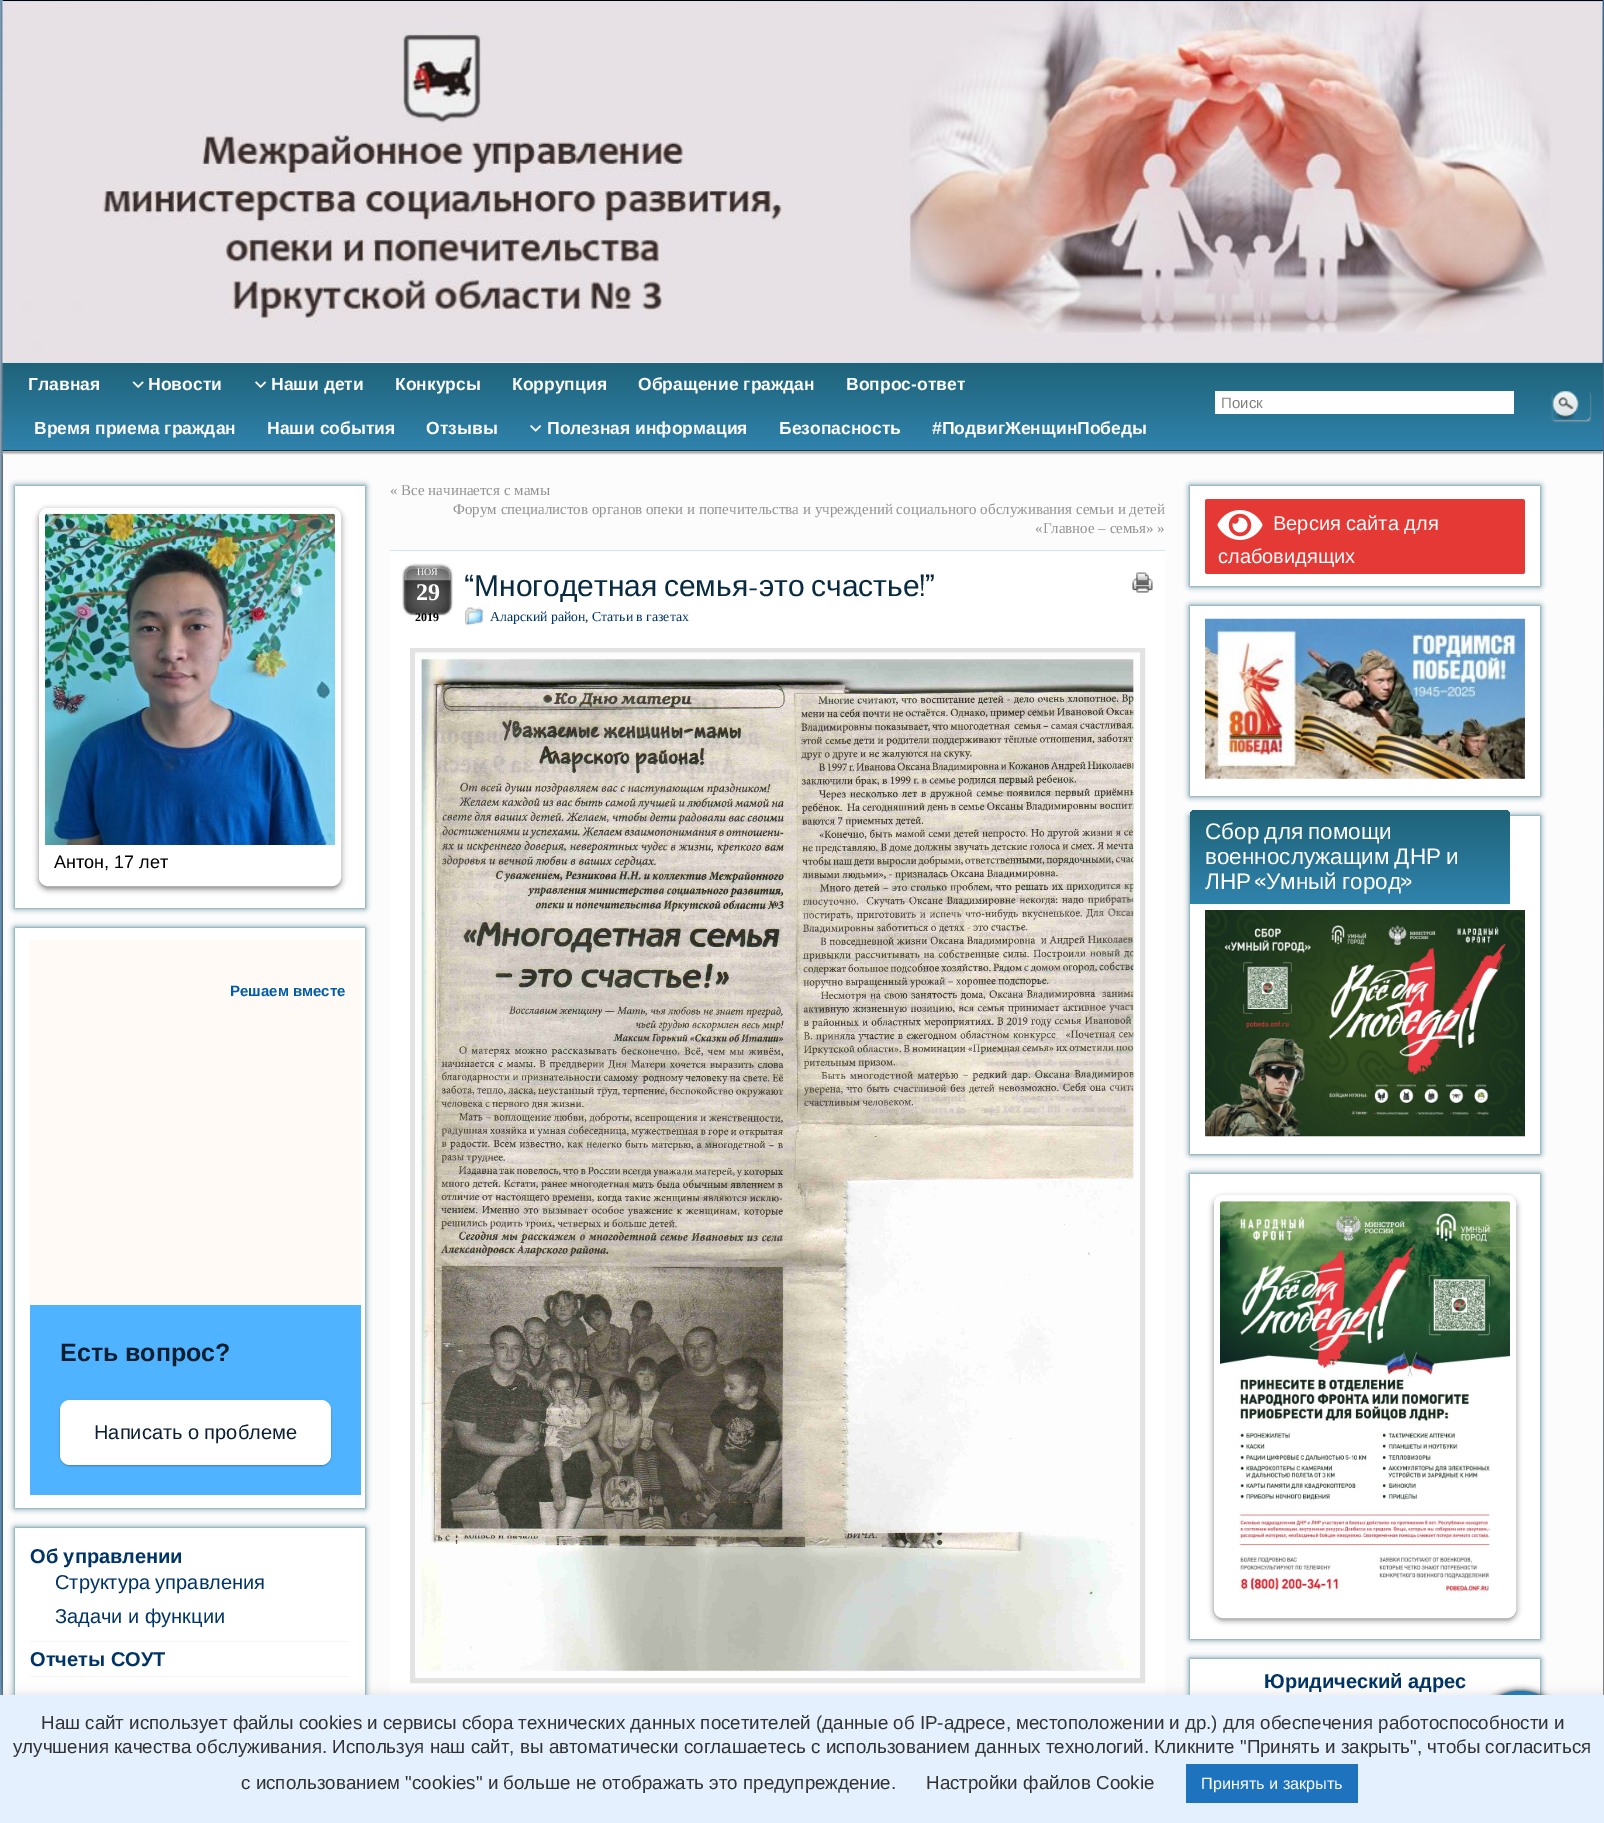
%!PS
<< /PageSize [1604 1823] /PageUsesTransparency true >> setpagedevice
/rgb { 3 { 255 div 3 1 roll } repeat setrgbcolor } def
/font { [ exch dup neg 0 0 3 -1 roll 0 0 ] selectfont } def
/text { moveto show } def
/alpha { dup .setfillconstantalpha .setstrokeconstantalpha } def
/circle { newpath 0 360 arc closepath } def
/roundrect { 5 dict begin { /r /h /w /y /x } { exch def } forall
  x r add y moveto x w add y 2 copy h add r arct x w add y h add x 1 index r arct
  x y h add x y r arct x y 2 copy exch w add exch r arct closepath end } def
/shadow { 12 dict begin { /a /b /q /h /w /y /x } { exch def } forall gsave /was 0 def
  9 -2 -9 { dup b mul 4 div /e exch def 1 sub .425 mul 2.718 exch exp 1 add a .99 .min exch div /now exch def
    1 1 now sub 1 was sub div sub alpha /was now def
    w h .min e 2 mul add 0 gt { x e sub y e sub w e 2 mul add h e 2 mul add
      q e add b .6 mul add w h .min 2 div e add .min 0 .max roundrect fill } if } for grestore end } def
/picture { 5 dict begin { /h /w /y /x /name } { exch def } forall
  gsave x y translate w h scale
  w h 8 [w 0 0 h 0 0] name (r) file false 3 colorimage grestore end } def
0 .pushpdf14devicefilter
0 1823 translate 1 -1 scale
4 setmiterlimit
255 255 255 rgb
0 0 1604 1823 rectfill
(img_01.rgb) 0 0 1604 1695 picture
0 0 0 rgb
3 0 1600 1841 0 6 1 shadow
3 0 1600 1 rectfill
(img_02.rgb) 2 1 1601 362 picture
gsave 3 363 moveto 1600 0 rlineto 0 87 rlineto -1600 0 rlineto closepath clip newpath
<< /ShadingType 2 /ColorSpace /DeviceRGB /Coords [803 362 803 450] /Extend [true true] /Function << /FunctionType 2 /Domain [0 1] /C0 [0.122 0.388 0.471] /C1 [0.188 0.514 0.678] /N 1 >> >> shfill grestore
23 55 69 rgb
3 450 1600 1 rectfill
(img_03.rgb) 132 381 12 7 picture
(img_04.rgb) 255 381 12 7 picture
(img_05.rgb) 530 425 12 7 picture
255 255 255 rgb
1215 391 299 23 rectfill
gsave
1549 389 moveto 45 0 rlineto 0 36 rlineto -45 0 rlineto closepath 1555.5 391 moveto 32 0 rlineto 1.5 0 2.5 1 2.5 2.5 rcurveto 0 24 rlineto 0 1.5 -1 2.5 -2.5 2.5 rcurveto -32 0 rlineto -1.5 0 -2.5 -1 -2.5 -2.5 rcurveto 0 -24 rlineto 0 -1.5 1 -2.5 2.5 -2.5 rcurveto closepath eoclip newpath
170 170 170 rgb
1553 393 37 28 2.5 1 1 shadow
grestore
(img_06.rgb) 1552 391 27 29 picture
252 252 252 rgb
3 451 1600 1244 rectfill
(img_07.rgb) 2 451 1601 4 picture
31 99 120 rgb
15 486 350 422 0 3 1 shadow
255 255 255 rgb
15 486 350 422 rectfill
0 0 0 rgb
39 510 302 379 9 3 0.5 shadow
255 255 255 rgb
6 setlinewidth
42 511 296 372 6 roundrect stroke
(img_08.rgb) 45 513 290 332 picture
45 845 290 35 rectfill
31 99 120 rgb
15 928 350 580 0 3 1 shadow
255 255 255 rgb
15 928 350 580 rectfill
80 179 255 rgb
30 1305 331 190 rectfill
255 250 246 rgb
30 940 331 365 rectfill
0 0 0 rgb
60 1401 271 65 10 1 0.3 shadow
255 255 255 rgb
60 1400 271 65 10 roundrect fill
31 99 120 rgb
15 1528 350 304 0 3 1 shadow
255 255 255 rgb
15 1528 350 167 rectfill
245 245 245 rgb
30 1641 320 1 rectfill
30 1676 320 1 rectfill
31 99 120 rgb
1190 1659 350 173 0 3 1 shadow
255 255 255 rgb
1190 1659 350 36 rectfill
0 0 0 rgb
1473 1691 95 95 47.5 3 1 shadow
11 117 186 rgb
1520.5 1738.5 47.5 circle fill
255 255 255 rgb
390 551 775 1144 rectfill
206 230 243 rgb
390 550 775 1 rectfill
(img_09.rgb) 402 563 51 53 picture
(img_10.rgb) 1132 572 21 21 picture
(img_11.rgb) 465 607 19 19 picture
227 227 227 rgb
5 setlinewidth
412.5 650.5 730 1030 rectstroke
(img_12.rgb) 415 652 725 1020 picture
31 99 120 rgb
1190 486 350 100 0 3 1 shadow
255 255 255 rgb
1190 486 350 100 rectfill
229 57 53 rgb
1205 499 320 75 2.5 roundrect fill
(img_13.rgb) 1217 510 46 30 picture
31 99 120 rgb
1190 606 350 190 0 3 1 shadow
255 255 255 rgb
1190 606 350 190 rectfill
(img_14.rgb) 1205 618 320 161 picture
31 99 120 rgb
1190 816 350 338 0 3 1 shadow
255 255 255 rgb
1190 816 350 338 rectfill
gsave 1196 810 moveto 308 0 rlineto 3.5 0 6 2.5 6 6 rcurveto 0 87 rlineto -320 0 rlineto 0 -87 rlineto 0 -3.5 2.5 -6 6 -6 rcurveto closepath clip newpath
<< /ShadingType 2 /ColorSpace /DeviceRGB /Coords [1350 810 1350 903] /Extend [true true] /Function << /FunctionType 2 /Domain [0 1] /C0 [0.122 0.388 0.471] /C1 [0.188 0.514 0.678] /N 1 >> >> shfill grestore
37 140 154 rgb
1190 903 320 1 rectfill
(img_15.rgb) 1205 910 320 227 picture
31 99 120 rgb
1190 1174 350 465 0 3 1 shadow
255 255 255 rgb
1190 1174 350 465 rectfill
gsave
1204 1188 moveto 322 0 rlineto 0 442 rlineto -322 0 rlineto closepath 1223 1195 moveto 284 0 rlineto 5 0 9 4 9 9 rcurveto 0 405 rlineto 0 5 -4 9 -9 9 rcurveto -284 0 rlineto -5 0 -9 -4 -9 -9 rcurveto 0 -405 rlineto 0 -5 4 -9 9 -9 rcurveto closepath eoclip newpath
0 0 0 rgb
1214 1198 302 422 9 3 0.5 shadow
grestore
6 setlinewidth
1217 1198 296 417 6 roundrect stroke
(img_16.rgb) 1220 1201 290 391 picture
172 171 171 rgb
0 1694 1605 129 0 6 0.3 shadow
229 240 255 rgb
0 1695 1604 128 rectfill
30 115 190 rgb
1186 1764 172 39 rectfill
/LiberationSans-Bold 17.5 font
255 255 255 rgb
(Главная) 28 390 text
(Новости) 148 390 text
(Наши дети) 271 390 text
(Конкурсы) 395 390 text
(Коррупция) 512 390 text
(Обращение граждан) 638 390 text
(Вопрос-ответ) 846 390 text
(Время приема граждан) 34 434 text
(Наши события) 267 434 text
(Отзывы) 426 434 text
(Полезная информация) 547 434 text
(Безопасность) 779 434 text
(#ПодвигЖенщинПобеды) 932 434 text
/LiberationSans-Regular 15 font
128 128 128 rgb
(Поиск) 1221 408 text
/LiberationSans-Regular 18 font
0 0 0 rgb
(Антон, 17 лет) 54 868 text
/LiberationSans-Bold 15 font
0 92 169 rgb
(Решаем вместе) 230 996 text
/LiberationSans-Bold 25 font
11 31 51 rgb
(Есть вопрос?) 60 1361 text
/LiberationSans-Regular 20 font
(Написать о проблеме) 94 1439 text
/LiberationSans-Bold 20 font
0 51 102 rgb
(Об управлении) 30 1563 text
/LiberationSans-Regular 20 font
(Структура управления) 55 1589 text
(Задачи и функции) 55 1623 text
/LiberationSans-Bold 20 font
(Отчеты СОУТ) 30 1666 text
/LiberationSerif-Regular 15 font
146 146 146 rgb
(« Все начинается с мамы) 390 495 text
(Форум специалистов органов опеки и попечительства и учреждений социального обслуживания семьи и детей) 453 514 text
(«Главное – семья» ») 1035 533 text
/LiberationSerif-Regular 10 font
255 255 255 rgb
(НОЯ) 417 575 text
/LiberationSerif-Bold 24 font
(29) 416 600 text
/LiberationSerif-Bold 12 font
0 0 0 rgb
(2019) 415 621 text
/PontanoSans-Regular 30 font
9 43 66 rgb
(“) 465 596 text
/LiberationSans-Regular 30 font
474 596 moveto -2 0 32 (Многодетная семья) widthshow
/PontanoSans-Regular 30 font
(-) 748 596 text
/LiberationSans-Regular 30 font
759 596 moveto -2 0 32 (это счастье) widthshow
/PontanoSans-Regular 30 font
(!”) 919 596 text
/LiberationSerif-Regular 13.75 font
0 51 102 rgb
(Аларский район) 490 621 text
44 43 43 rgb
(,) 585 621 text
0 51 102 rgb
(Статьи в газетах) 592 621 text
/LiberationSans-Regular 20 font
255 255 255 rgb
(Версия сайта для) 1273 530 text
(слабовидящих) 1218 563 text
/LiberationSans-Regular 22.5 font
1205 839 moveto -1 0 32 (Сбор для помощи) widthshow
1205 864 moveto -1 0 32 (военнослужащим ДНР и) widthshow
(ЛНР) 1205 889 text
/PontanoSans-Regular 22.5 font
(«) 1255 889 text
/LiberationSans-Regular 22.5 font
1266 889 moveto -1 0 32 (Умный город) widthshow
/PontanoSans-Regular 22.5 font
(») 1401 889 text
/LiberationSans-Bold 20 font
0 51 102 rgb
(Юридический адрес) 1264 1688 text
/LiberationSans-Regular 18.75 font
51 51 51 rgb
(Наш сайт использует файлы cookies и сервисы сбора технических данных посетителей \(данные об IP-адресе, местоположении и др.\) для обеспечения работоспособности и) 41 1729 text
(улучшения качества обслуживания. Используя наш сайт, вы автоматически соглашаетесь с использованием данных технологий. Кликните "Принять и закрыть", чтобы согласиться) 13 1753 text
(с использованием "cookies" и больше не отображать это предупреждение.) 241 1789 text
(Настройки файлов Cookie) 926 1789 text
/LiberationSans-Regular 16.25 font
255 255 255 rgb
(Принять и закрыть) 1201 1789 text
.poppdf14devicefilter showpage
